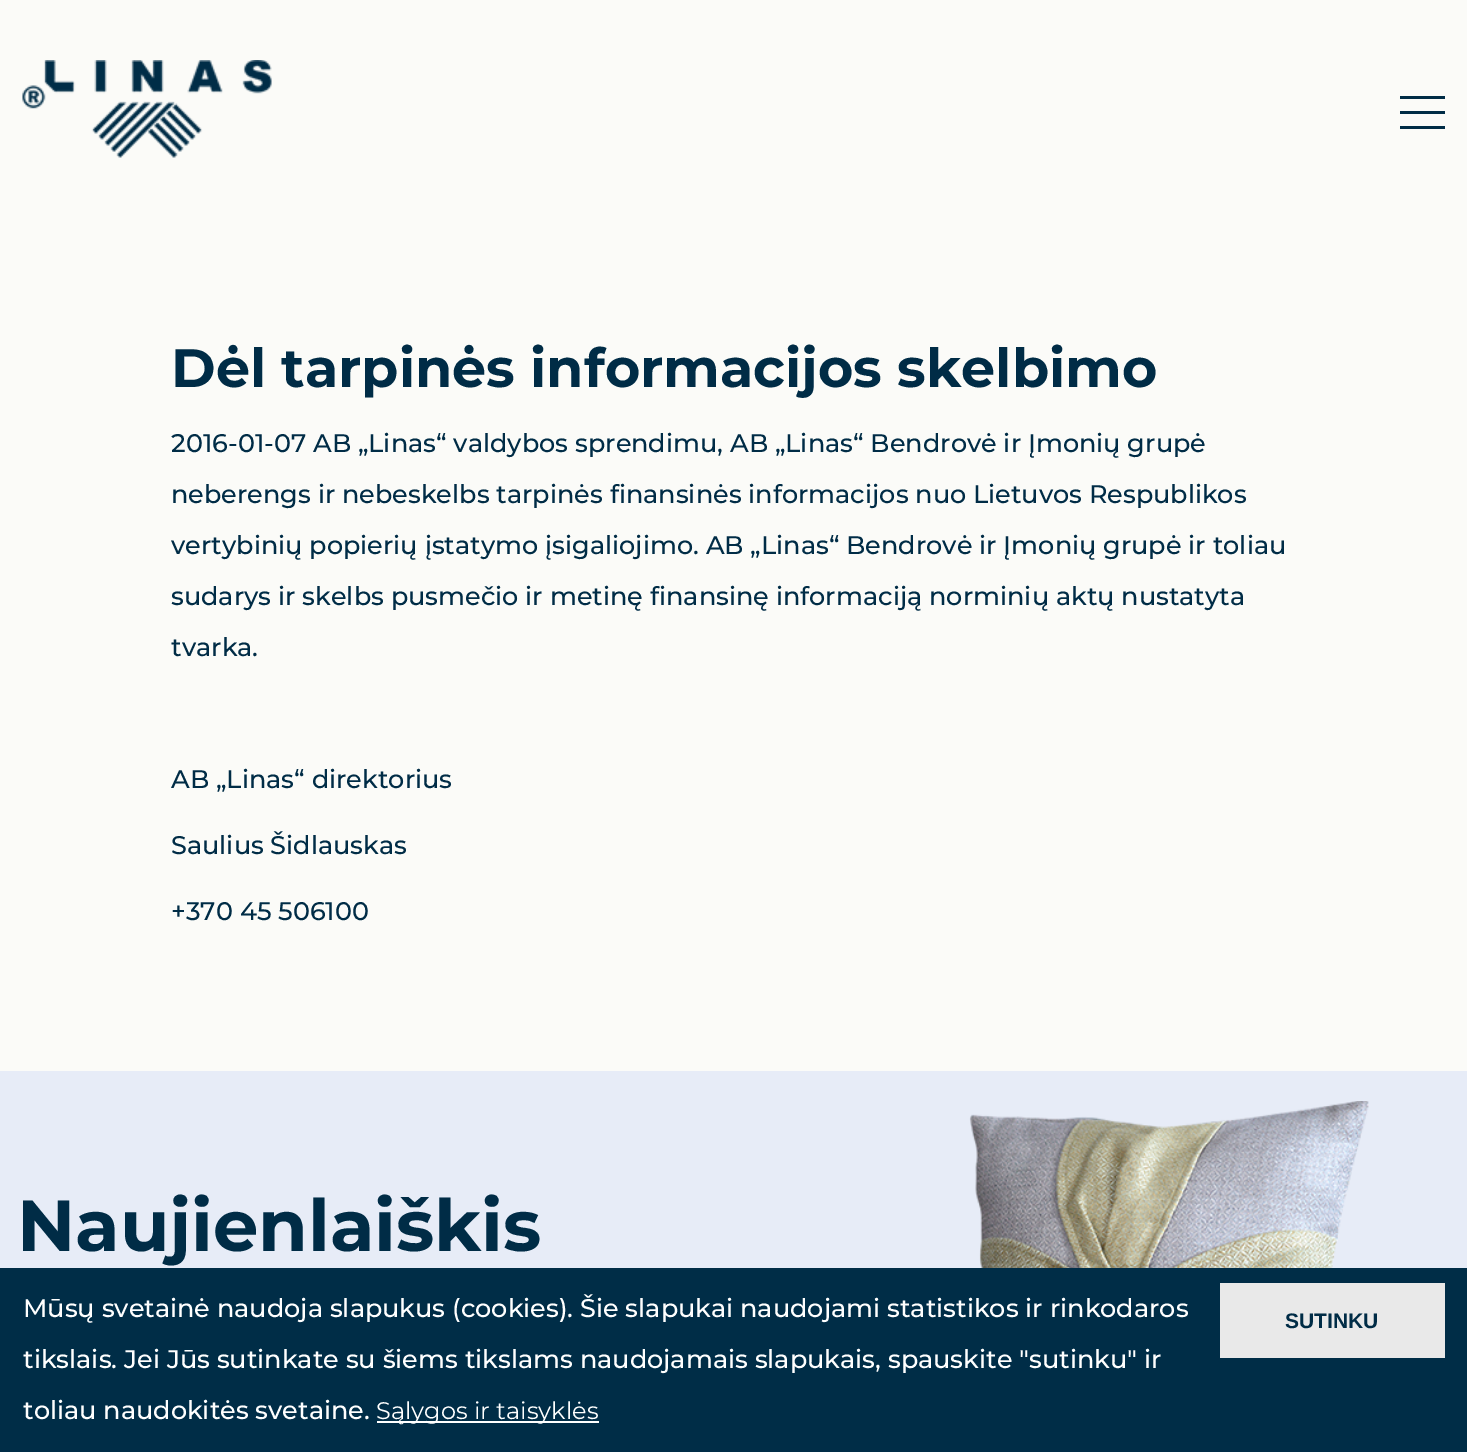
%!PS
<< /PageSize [1467 1452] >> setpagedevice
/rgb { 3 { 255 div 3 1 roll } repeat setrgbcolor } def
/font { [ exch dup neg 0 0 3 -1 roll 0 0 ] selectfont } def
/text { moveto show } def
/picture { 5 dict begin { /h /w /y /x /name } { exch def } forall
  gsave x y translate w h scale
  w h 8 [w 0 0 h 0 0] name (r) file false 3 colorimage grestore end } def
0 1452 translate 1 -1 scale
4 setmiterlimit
251 251 248 rgb
0 0 1467 1452 rectfill
(img_01.rgb) 22 60 250 98 picture
0 44 70 rgb
1400 96 45 3 rectfill
1400 111 45 3 rectfill
1400 126 45 3 rectfill
231 236 247 rgb
0 1071 1467 197 rectfill
(img_02.rgb) 969 1101 400 167 picture
0 45 71 rgb
0 1268 1467 184 rectfill
255 255 255 rgb
377 1421 222 2 rectfill
233 233 233 rgb
1220 1283 225 75 rectfill
/Montserrat-Bold 54 font
0 44 70 rgb
(Dėl tarpinės informacijos skelbimo) 171 387 text
/Montserrat-Medium 25.5 font
(2016-01-07 AB „Linas“ valdybos sprendimu, AB „Linas“ Bendrovė ir Įmonių grupė) 171 452 text
(neberengs ir nebeskelbs tarpinės finansinės informacijos nuo Lietuvos Respublikos) 171 503 text
(vertybinių popierių įstatymo įsigaliojimo. AB „Linas“ Bendrovė ir Įmonių grupė ir toliau) 171 554 text
(sudarys ir skelbs pusmečio ir metinę finansinę informaciją norminių aktų nustatyta) 171 605 text
(tvarka.) 171 656 text
(AB „Linas“ direktorius) 171 788 text
(Saulius Šidlauskas) 171 854 text
(+370 45 506100) 171 920 text
/Montserrat-Bold 72 font
(Naujienlaiškis) 17 1251 text
/Montserrat-Medium 25.5 font
255 255 255 rgb
(Mūsų svetainė naudoja slapukus \(cookies\). Šie slapukai naudojami statistikos ir rinkodaros) 23 1317 text
(tikslais. Jei Jūs sutinkate su šiems tikslams naudojamais slapukais, spauskite "sutinku" ir) 23 1368 text
(toliau naudokitės svetaine.) 23 1419 text
/Montserrat-Regular 24 font
(Sąlygos ir taisyklės) 376 1419 text
/LiberationSans-Bold 21 font
0 44 70 rgb
(SUTINKU) 1285 1328 text
showpage
